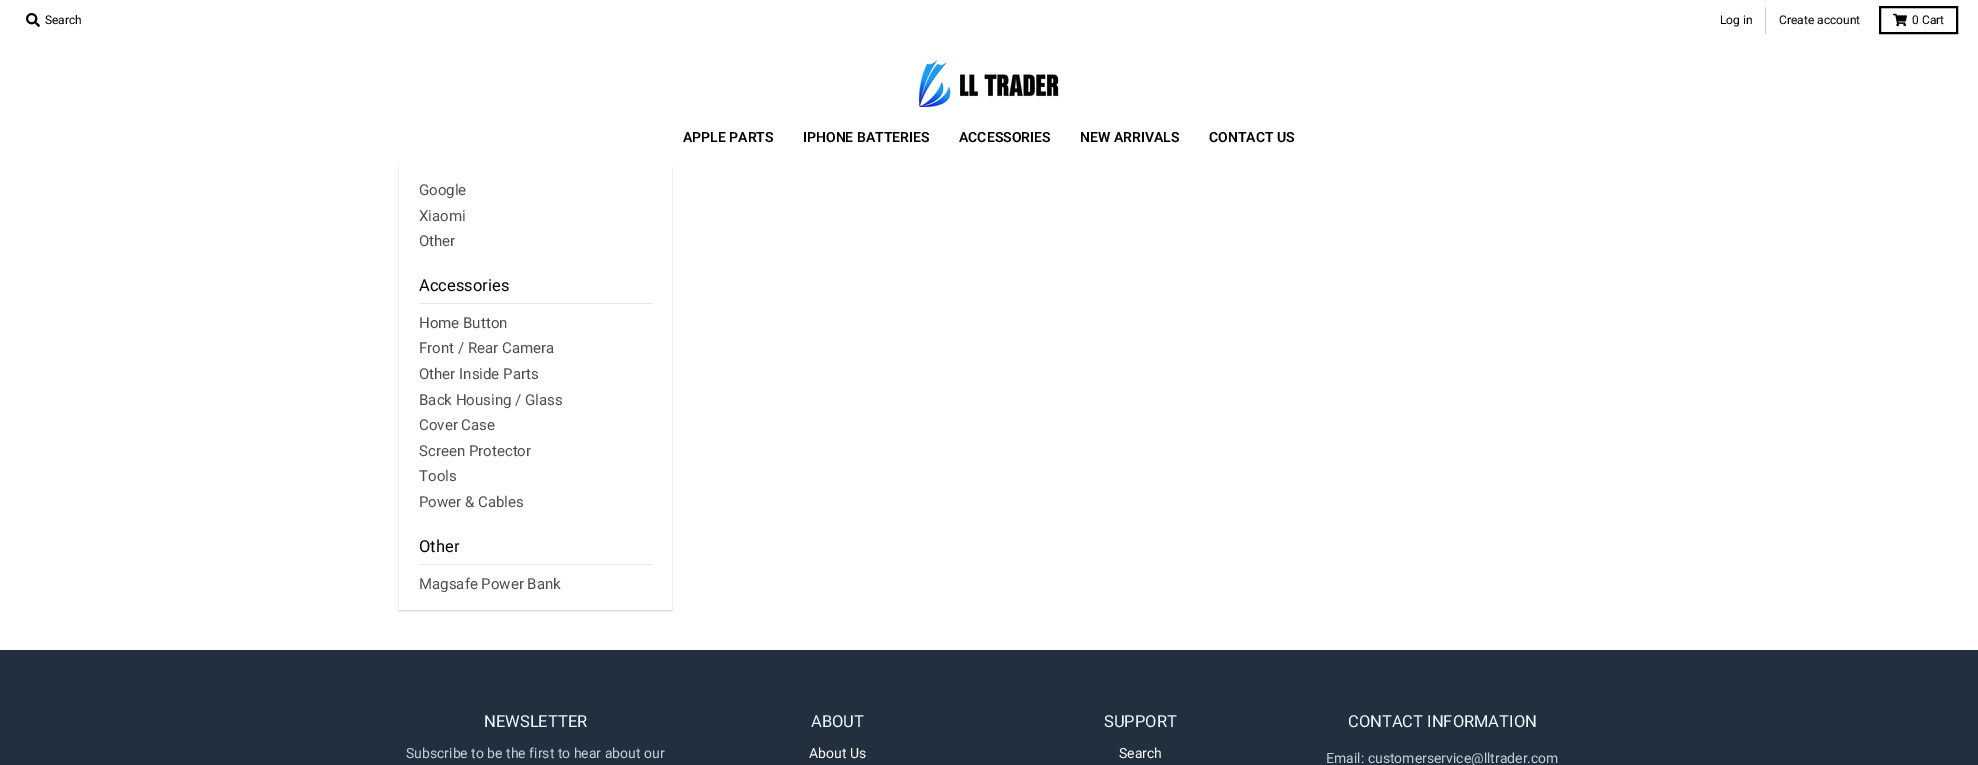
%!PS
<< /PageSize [1978 765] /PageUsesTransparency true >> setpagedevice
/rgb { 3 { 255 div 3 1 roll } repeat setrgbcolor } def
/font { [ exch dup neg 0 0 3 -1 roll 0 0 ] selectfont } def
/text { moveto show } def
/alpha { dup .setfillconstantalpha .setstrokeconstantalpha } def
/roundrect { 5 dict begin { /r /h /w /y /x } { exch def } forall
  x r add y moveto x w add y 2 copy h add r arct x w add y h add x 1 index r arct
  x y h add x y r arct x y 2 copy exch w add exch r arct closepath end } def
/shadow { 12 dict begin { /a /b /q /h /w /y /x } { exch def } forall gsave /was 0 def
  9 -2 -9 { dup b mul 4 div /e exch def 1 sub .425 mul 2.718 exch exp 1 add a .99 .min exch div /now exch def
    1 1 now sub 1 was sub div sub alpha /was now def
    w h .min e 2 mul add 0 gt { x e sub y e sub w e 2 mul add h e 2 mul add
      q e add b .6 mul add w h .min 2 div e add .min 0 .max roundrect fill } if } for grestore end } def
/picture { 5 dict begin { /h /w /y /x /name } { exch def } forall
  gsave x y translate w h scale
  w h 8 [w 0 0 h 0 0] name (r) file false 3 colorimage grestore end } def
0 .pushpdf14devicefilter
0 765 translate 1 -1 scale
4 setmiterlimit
255 255 255 rgb
0 0 1978 765 rectfill
(img_01.rgb) 26 13 14 14 picture
204 204 204 rgb
1765 7 1 27 rectfill
0 0 0 rgb
2 setlinewidth
1880 7 77 26 rectstroke
(img_02.rgb) 1893 13 14 14 picture
gsave
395 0 moveto 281 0 rlineto 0 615 rlineto -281 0 rlineto closepath 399 -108 moveto 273 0 rlineto 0 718 rlineto -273 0 rlineto closepath eoclip newpath
399 -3 273 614 0 1 0.2 shadow
grestore
255 255 255 rgb
397 0 277 167 rectfill
(img_03.rgb) 919 60 140 47 picture
229 229 229 rgb
419 303 233 1 rectfill
419 564 233 1 rectfill
34 47 62 rgb
0 650 1978 115 rectfill
/Roboto-Regular 12 font
0 0 0 rgb
(Search) 45 24 text
(Log in) 1720 24 text
(Create account) 1779 24 text
(0 Cart) 1912 24 text
/Roboto-SemiBold 14 font
(APPLE PARTS) 683 142 text
(IPHONE BATTERIES) 803 142 text
(ACCESSORIES) 959 142 text
(NEW ARRIVALS) 1080 142 text
(CONTACT US) 1209 142 text
/Roboto-Regular 15 font
79 79 79 rgb
(Google) 419 195 text
(Xiaomi) 419 221 text
(Other) 419 246 text
/Roboto-Regular 16.5 font
0 0 0 rgb
(Accessories) 419 291 text
/Roboto-Regular 15 font
79 79 79 rgb
(Home Button) 419 328 text
(Front / Rear Camera) 419 353 text
(Other Inside Parts) 419 379 text
(Back Housing / Glass) 419 405 text
(Cover Case) 419 430 text
(Screen Protector) 419 456 text
(Tools) 419 481 text
(Power & Cables) 419 507 text
/Roboto-Regular 16.5 font
0 0 0 rgb
(Other) 419 552 text
/Roboto-Regular 15 font
79 79 79 rgb
(Magsafe Power Bank) 419 589 text
/Roboto-Regular 16.5 font
233 249 255 rgb
(NEWSLETTER) 484 727 text
/Roboto-Regular 14 font
193 208 216 rgb
(Subscribe to be the first to hear about our) 406 758 text
/Roboto-Regular 16.5 font
233 249 255 rgb
(ABOUT) 811 727 text
/Roboto-Regular 14 font
255 255 255 rgb
(About Us) 809 758 text
/Roboto-Regular 16.5 font
233 249 255 rgb
(SUPPORT) 1104 727 text
/Roboto-Regular 14 font
255 255 255 rgb
(Search) 1119 758 text
/Roboto-Regular 16.5 font
233 249 255 rgb
(CONTACT INFORMATION) 1348 727 text
/Roboto-Regular 14 font
193 208 216 rgb
(Email: customerservice@lltrader.com) 1326 763 text
.poppdf14devicefilter showpage
